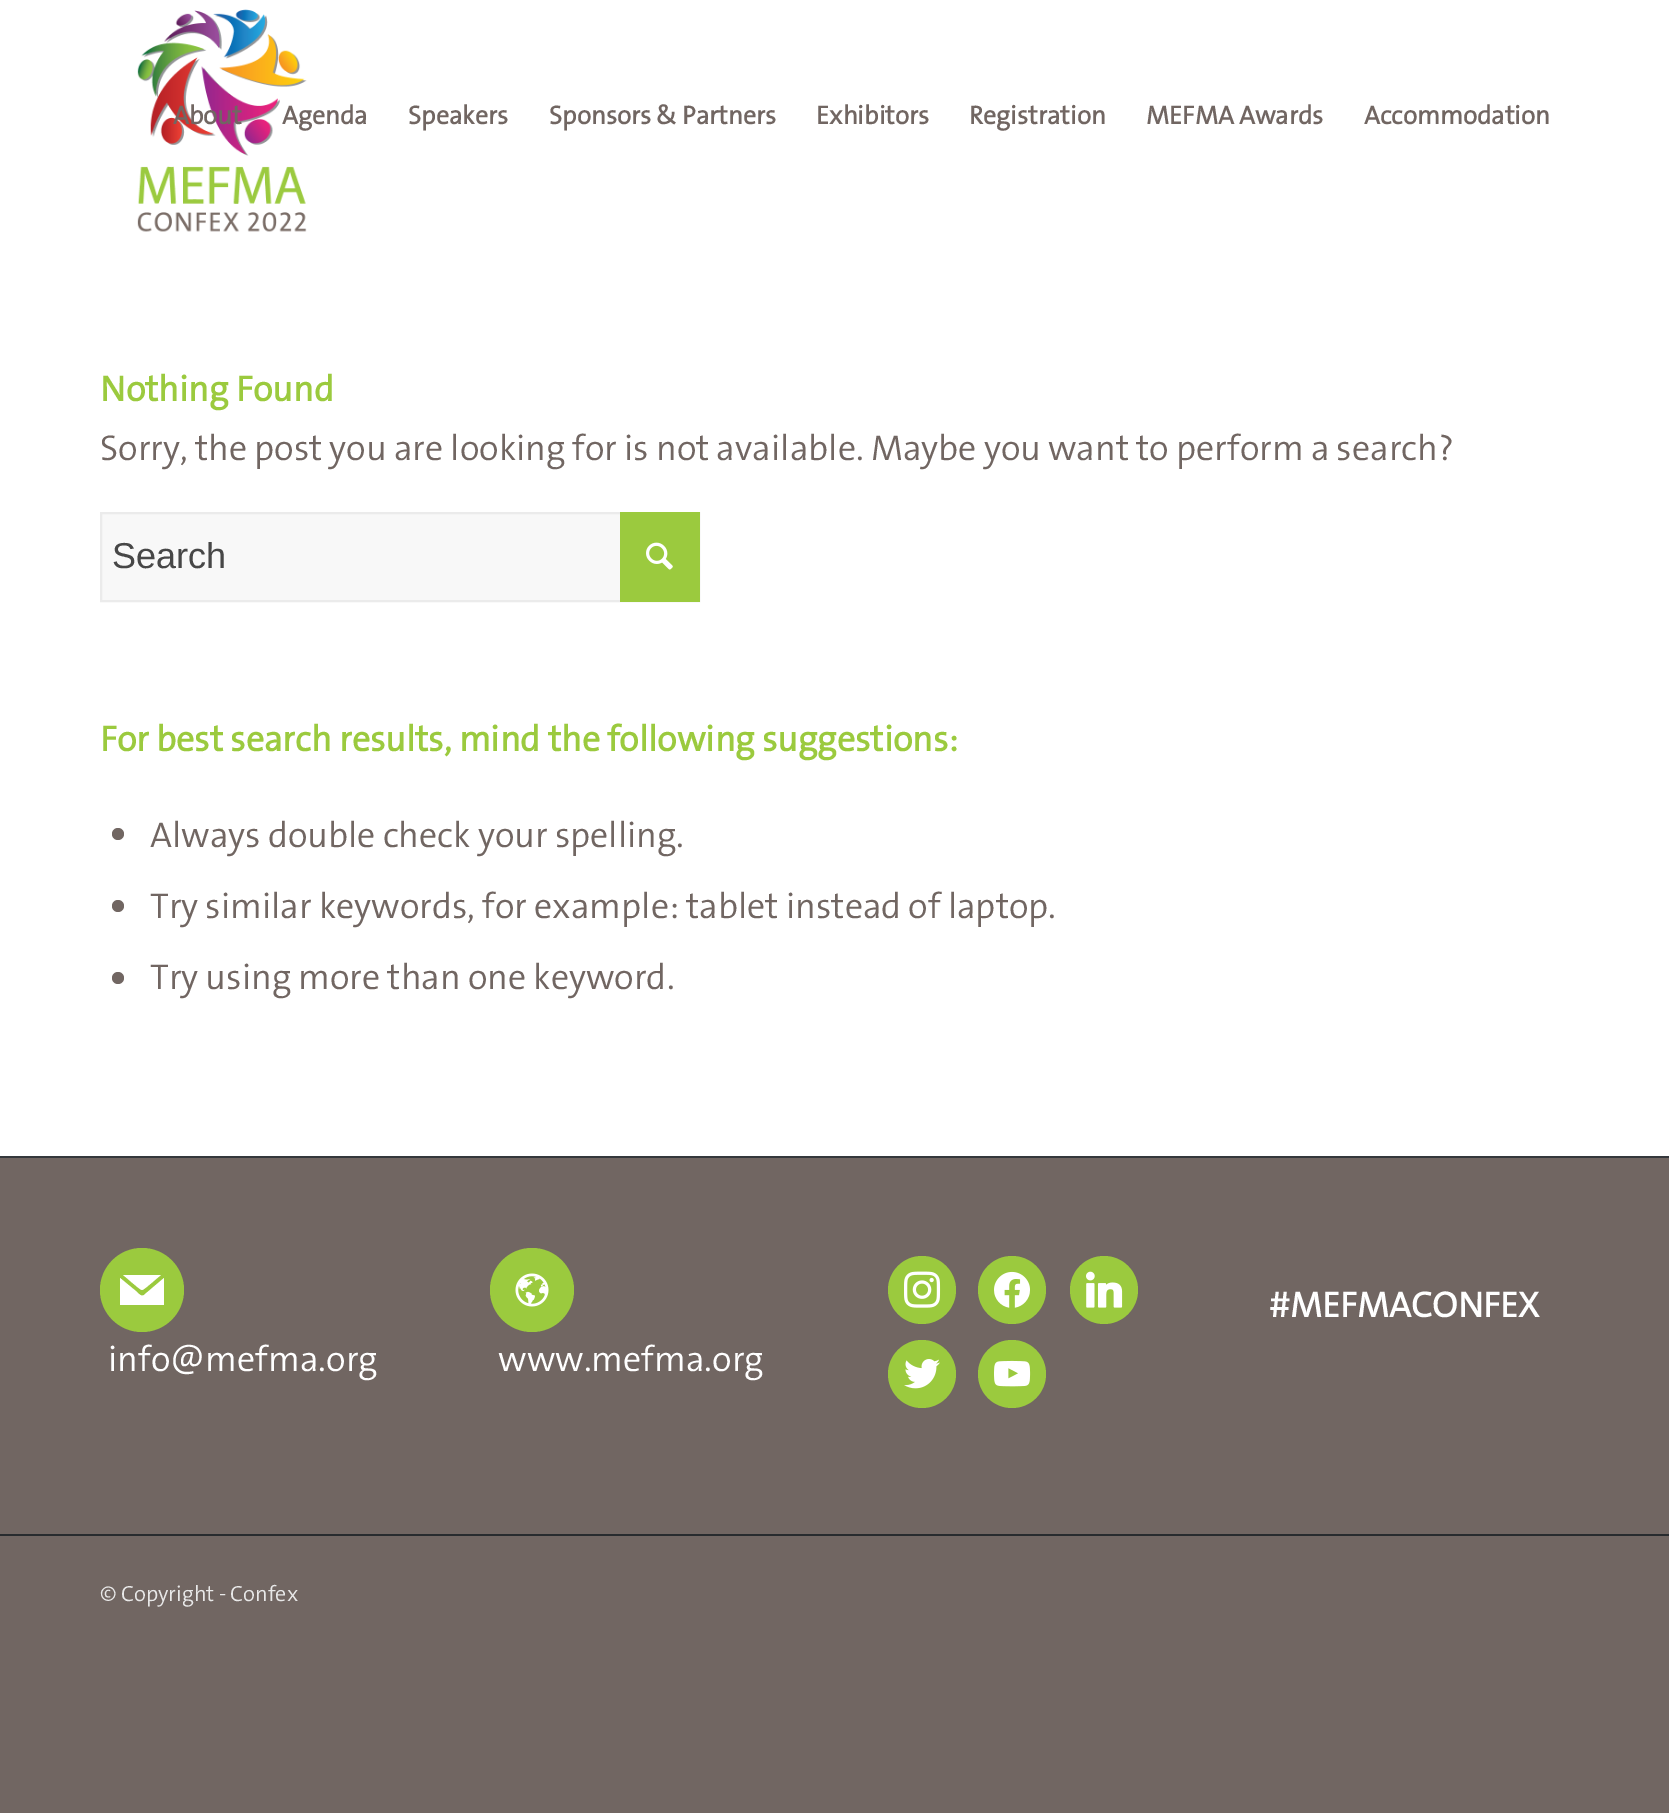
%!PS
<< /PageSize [1669 1813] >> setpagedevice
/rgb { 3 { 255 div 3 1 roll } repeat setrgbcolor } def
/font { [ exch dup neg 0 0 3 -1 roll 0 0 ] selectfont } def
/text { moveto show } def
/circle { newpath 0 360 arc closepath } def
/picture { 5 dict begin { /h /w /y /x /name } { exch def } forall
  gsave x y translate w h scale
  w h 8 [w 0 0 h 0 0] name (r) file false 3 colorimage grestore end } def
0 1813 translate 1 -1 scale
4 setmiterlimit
113 102 98 rgb
0 0 1669 1813 rectfill
255 255 255 rgb
0 0 1669 1156 rectfill
(img_01.rgb) 137 9 170 223 picture
248 248 248 rgb
102 514 518 86 rectfill
235 235 235 rgb
2 setlinewidth
101 513 598 88 rectstroke
155 202 62 rgb
620 512 80 90 rectfill
(img_02.rgb) 646 542 27 28 picture
113 102 98 rgb
118 834 6 circle fill
118 906 6 circle fill
118 978 6 circle fill
53 56 60 rgb
0 1156 1669 2 rectfill
155 202 62 rgb
922 1290 34 circle fill
(img_03.rgb) 904 1271 37 37 picture
1012 1290 34 circle fill
(img_04.rgb) 994 1271 36 37 picture
1104 1290 34 circle fill
(img_05.rgb) 1086 1271 37 37 picture
922 1374 34 circle fill
(img_06.rgb) 904 1359 36 30 picture
1012 1374 34 circle fill
(img_07.rgb) 994 1360 37 27 picture
142 1290 42 circle fill
255 255 255 rgb
144 1295 moveto -3 2 -6 -2 -7 -3 rcurveto -17 -14 rlineto 0 27 rlineto 44 0 rlineto 0 -27 rlineto closepath 142 1290 moveto 2 0 16 -13 19 -15 rcurveto -38 0 rlineto 3 2 17 15 19 15 rcurveto closepath fill
155 202 62 rgb
532 1290 42 circle fill
(img_08.rgb) 515 1273 34 34 picture
40 43 46 rgb
0 1534 1669 2 rectfill
/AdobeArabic-Bold 26 font
113 102 98 rgb
(About) 173 124 text
(Agenda) 282 124 text
(Speakers) 408 124 text
(Sponsors & Partners) 549 124 text
(Exhibitors) 816 124 text
(Registration) 969 124 text
(MEFMA Awards) 1146 124 text
(Accommodation) 1364 124 text
/AdobeArabic-Bold 36 font
155 202 62 rgb
(Nothing Found) 100 401 text
/AdobeArabic-Regular 36 font
113 102 98 rgb
(Sorry, the post you are looking for is not available. Maybe you want to perform a search?) 100 460 text
/LiberationSans-Regular 36 font
71 71 71 rgb
(Search) 112 568 text
/AdobeArabic-Bold 36 font
155 202 62 rgb
(For best search results, mind the following suggestions:) 100 751 text
/AdobeArabic-Regular 36 font
113 102 98 rgb
(Always double check your spelling.) 150 847 text
(Try similar keywords, for example: tablet instead of laptop.) 150 918 text
(Try using more than one keyword.) 150 989 text
/AdobeArabic-Bold 36 font
255 255 255 rgb
(#MEFMACONFEX) 1269 1317 text
/AdobeArabic-Regular 36 font
(info@mefma.org) 108 1371 text
(www.mefma.org) 498 1371 text
/AdobeArabic-Regular 22 font
232 232 232 rgb
(© Copyright - Confex) 100 1601 text
showpage
